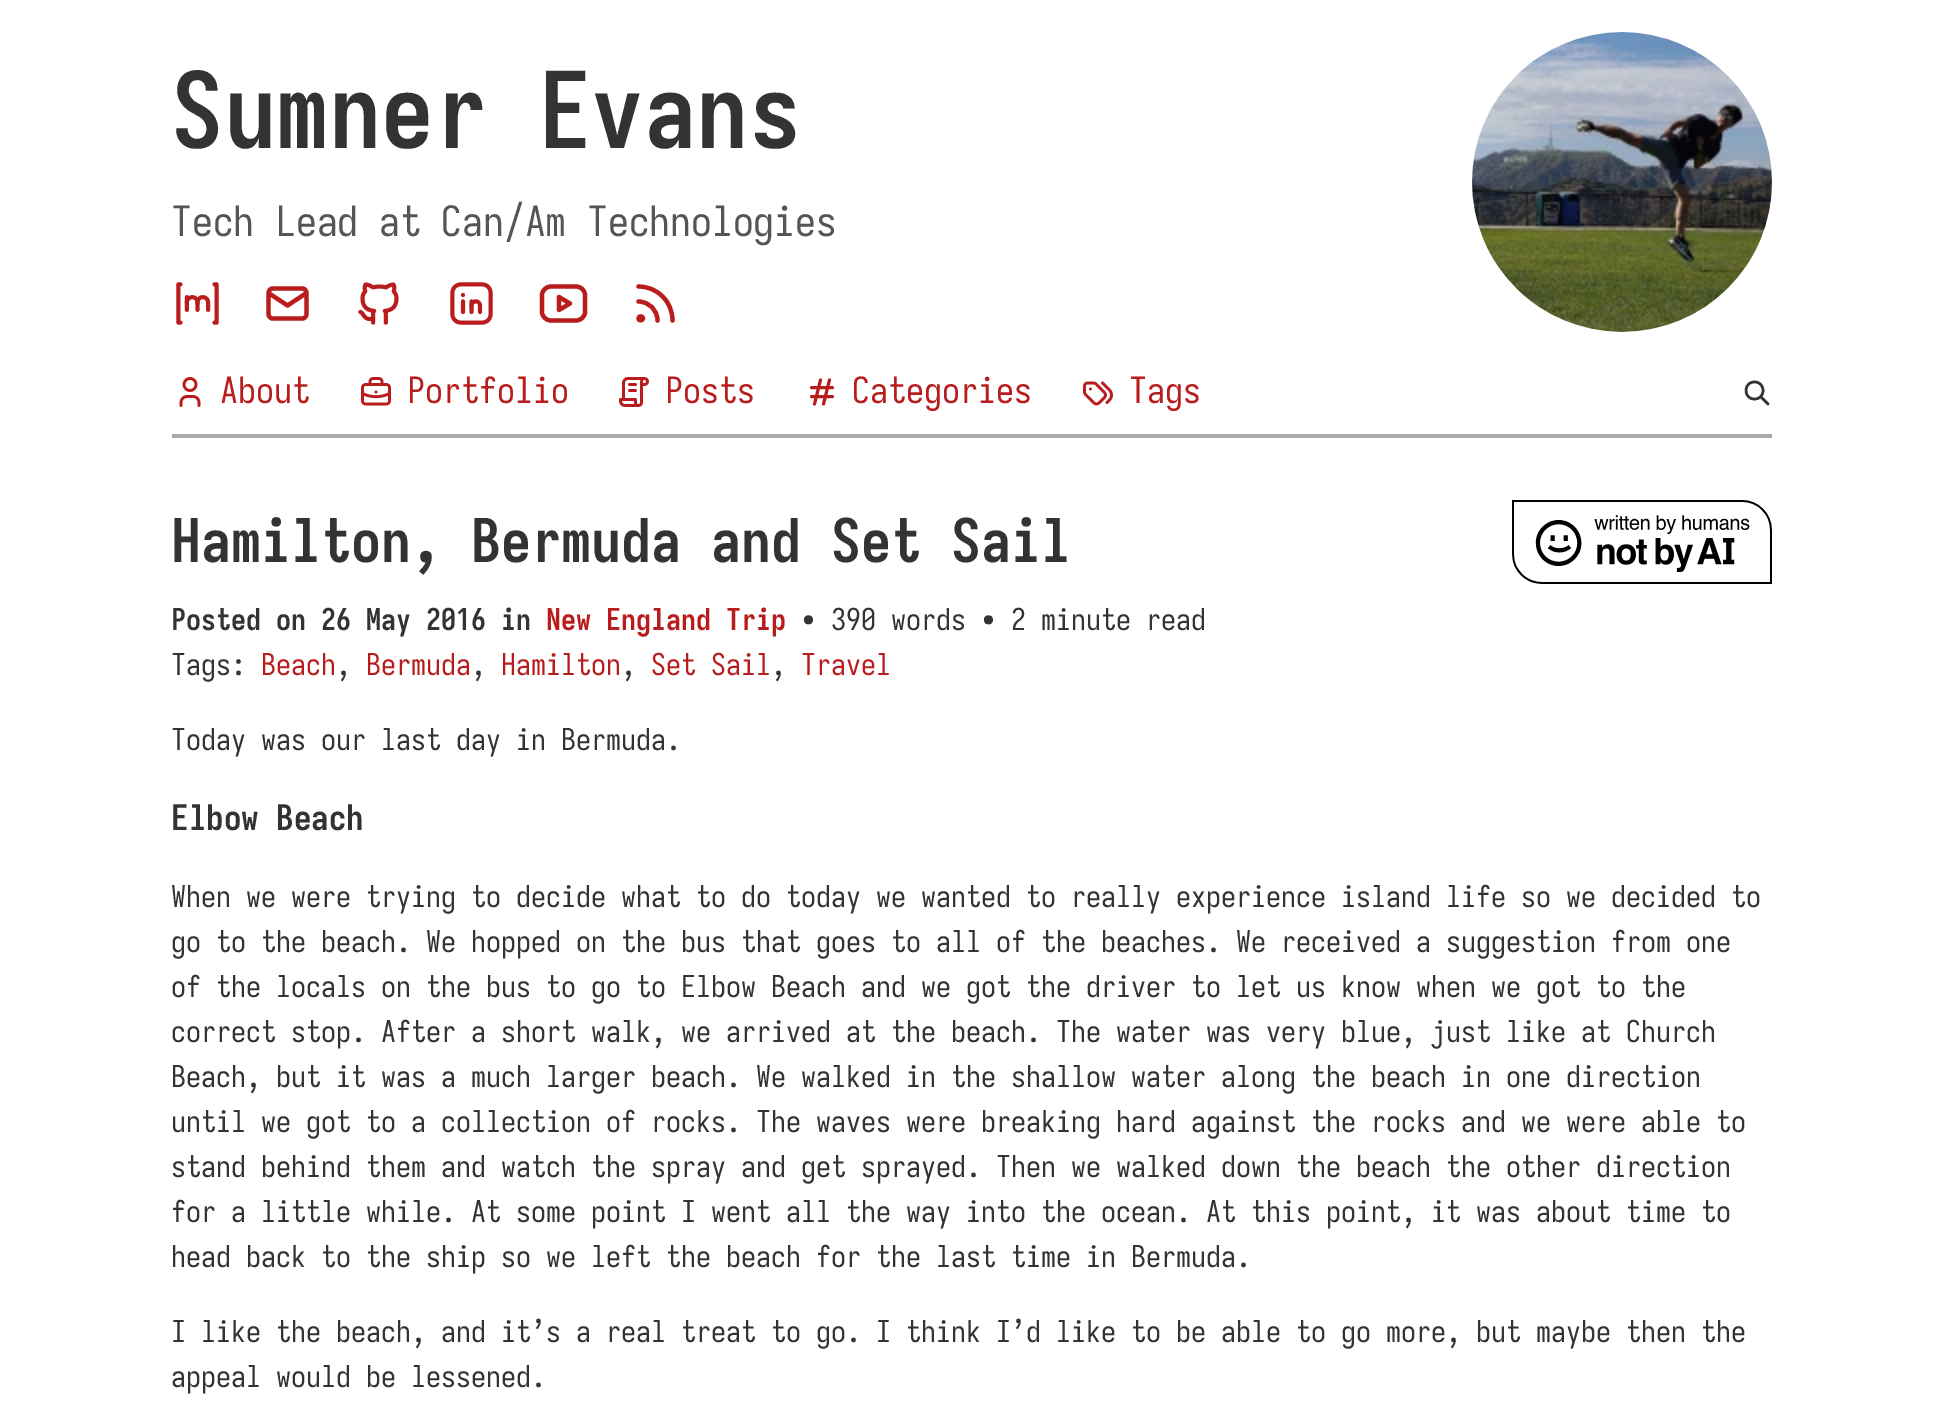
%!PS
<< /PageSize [1942 1423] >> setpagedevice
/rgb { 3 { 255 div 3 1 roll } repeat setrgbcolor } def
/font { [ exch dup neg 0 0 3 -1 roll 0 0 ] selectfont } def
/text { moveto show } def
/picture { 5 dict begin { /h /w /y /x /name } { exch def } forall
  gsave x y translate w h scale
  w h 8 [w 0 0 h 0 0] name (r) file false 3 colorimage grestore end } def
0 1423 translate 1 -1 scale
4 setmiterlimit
255 255 255 rgb
0 0 1942 1423 rectfill
(img_01.rgb) 1472 32 300 300 picture
(img_02.rgb) 176 282 43 43 picture
185 28 28 rgb
4.2 setlinewidth
1 setlinecap
1 setlinejoin
268.5 293 moveto 0 -2.5 2 -4.5 4 -4.5 rcurveto 30 0 rlineto 2 0 4 2 4 4.5 rcurveto 0 21 rlineto 0 2.5 -2 4.5 -4 4.5 rcurveto -30 0 rlineto -2 0 -4 -2 -4 -4.5 rcurveto closepath 268.5 293 moveto 19 12.5 rlineto 19 -12.5 rlineto stroke
(img_03.rgb) 358 282 41 43 picture
(img_04.rgb) 450 282 43 43 picture
542 295 moveto 0 -4.5 4 -8.5 9 -8.5 rcurveto 25 0 rlineto 5 0 9 4 9 8.5 rcurveto 0 17 rlineto 0 4.5 -4 8.5 -9 8.5 rcurveto -25 0 rlineto -5 0 -9 -4 -9 -8.5 rcurveto closepath 559 297 moveto 11 6.5 rlineto -11 6.5 rlineto closepath stroke
638.5 318.5 moveto 0 2.5 4 2.5 4.5 0 rcurveto 0 -3 -4.5 -3 -4.5 0 rcurveto 638.5 286.5 moveto 19 0 34 15 34 34 rcurveto 638.5 301.5 moveto 10.5 0 19 8.5 19 19 rcurveto stroke
170 170 170 rgb
172 434 1600 4 rectfill
(img_05.rgb) 179 377 22 30 picture
(img_06.rgb) 361 377 30 29 picture
(img_07.rgb) 619 377 30 30 picture
185 28 28 rgb
3 setlinewidth
811.5 387.5 moveto 21 0 rlineto 811.5 396.5 moveto 21 0 rlineto 820.5 380 moveto -6 24 rlineto 829.5 380 moveto -6 24 rlineto stroke
(img_08.rgb) 1083 381 30 25 picture
51 51 51 rgb
2.5 setlinewidth
1746 390.5 moveto 0 11.5 17 11.5 17 0 rcurveto 0 -11.5 -17 -11.5 -17 0 rcurveto 1768 404 moveto -7 -7 rlineto stroke
(img_09.rgb) 1512 500 260 84 picture
/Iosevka-Bold 105 font
(Sumner Evans) 171 148 text
/Iosevka-Regular 41.6 font
85 85 85 rgb
(Tech Lead at Can/Am Technologies) 171 236 text
/Iosevka-Regular 36 font
185 28 28 rgb
(About) 220 403 text
(Portfolio) 407 403 text
(Posts) 665 403 text
(Categories) 852 403 text
(Tags) 1129 403 text
/Iosevka-Bold 60 font
51 51 51 rgb
(Hamilton, Bermuda and Set Sail) 171 562 text
/Iosevka-Bold 30 font
(Posted on 26 May 2016 in) 171 630 text
185 28 28 rgb
(New England Trip) 546 630 text
/Iosevka-Regular 30 font
51 51 51 rgb
(• 390 words • 2 minute read) 801 630 text
(Tags:) 171 675 text
185 28 28 rgb
(Beach) 261 675 text
51 51 51 rgb
(,) 336 675 text
185 28 28 rgb
(Bermuda) 366 675 text
51 51 51 rgb
(,) 471 675 text
185 28 28 rgb
(Hamilton) 501 675 text
51 51 51 rgb
(,) 621 675 text
185 28 28 rgb
(Set Sail) 651 675 text
51 51 51 rgb
(,) 771 675 text
185 28 28 rgb
(Travel) 801 675 text
51 51 51 rgb
(Today was our last day in Bermuda.) 171 750 text
/Iosevka-Bold 35 font
(Elbow Beach) 171 830 text
/Iosevka-Regular 30 font
(When we were trying to decide what to do today we wanted to really experience island life so we decided to) 171 907 text
(go to the beach. We hopped on the bus that goes to all of the beaches. We received a suggestion from one) 171 952 text
(of the locals on the bus to go to Elbow Beach and we got the driver to let us know when we got to the) 171 997 text
(correct stop. After a short walk, we arrived at the beach. The water was very blue, just like at Church) 171 1042 text
(Beach, but it was a much larger beach. We walked in the shallow water along the beach in one direction) 171 1087 text
(until we got to a collection of rocks. The waves were breaking hard against the rocks and we were able to) 171 1132 text
(stand behind them and watch the spray and get sprayed. Then we walked down the beach the other direction) 171 1177 text
(for a little while. At some point I went all the way into the ocean. At this point, it was about time to) 171 1222 text
(head back to the ship so we left the beach for the last time in Bermuda.) 171 1267 text
(I like the beach, and it’s a real treat to go. I think I’d like to be able to go more, but maybe then the) 171 1342 text
(appeal would be lessened.) 171 1387 text
showpage
